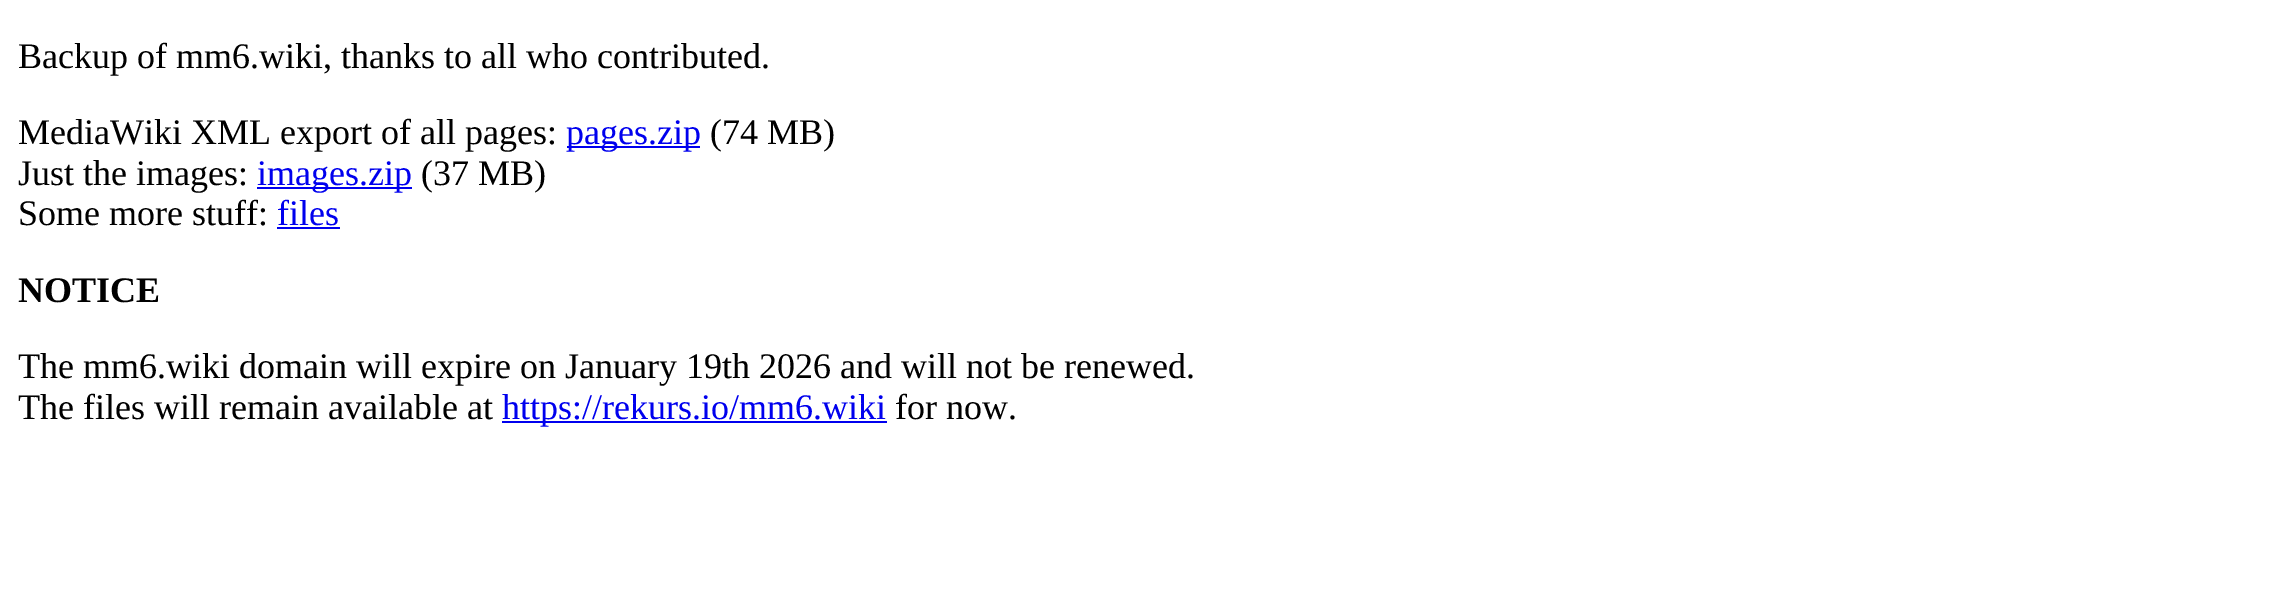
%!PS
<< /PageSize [2275 600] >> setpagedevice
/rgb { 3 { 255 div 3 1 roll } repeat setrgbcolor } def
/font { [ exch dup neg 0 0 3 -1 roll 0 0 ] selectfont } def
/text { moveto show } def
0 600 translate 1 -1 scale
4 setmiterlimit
255 255 255 rgb
0 0 2275 600 rectfill
0 0 238 rgb
567 146 133 2 rectfill
257 187 155 2 rectfill
277 227 63 2 rectfill
502 421 385 2 rectfill
/LiberationSerif-Regular 36 font
0 0 0 rgb
(Backup of mm6.wiki, thanks to all who contributed.) 18 68 text
(MediaWiki XML export of all pages:) 18 144 text
0 0 238 rgb
(pages.zip) 566 144 text
0 0 0 rgb
(\(74 MB\)) 710 144 text
(Just the images:) 18 185 text
0 0 238 rgb
(images.zip) 257 185 text
0 0 0 rgb
(\(37 MB\)) 421 185 text
(Some more stuff:) 18 225 text
0 0 238 rgb
(files) 277 225 text
/LiberationSerif-Bold 36 font
0 0 0 rgb
(NOTICE) 18 302 text
/LiberationSerif-Regular 36 font
(The mm6.wiki domain will expire on January 19th 2026 and will not be renewed.) 18 378 text
(The files will remain available at) 18 419 text
0 0 238 rgb
(https://rekurs.io/mm6.wiki) 502 419 text
0 0 0 rgb
(for now.) 895 419 text
showpage
